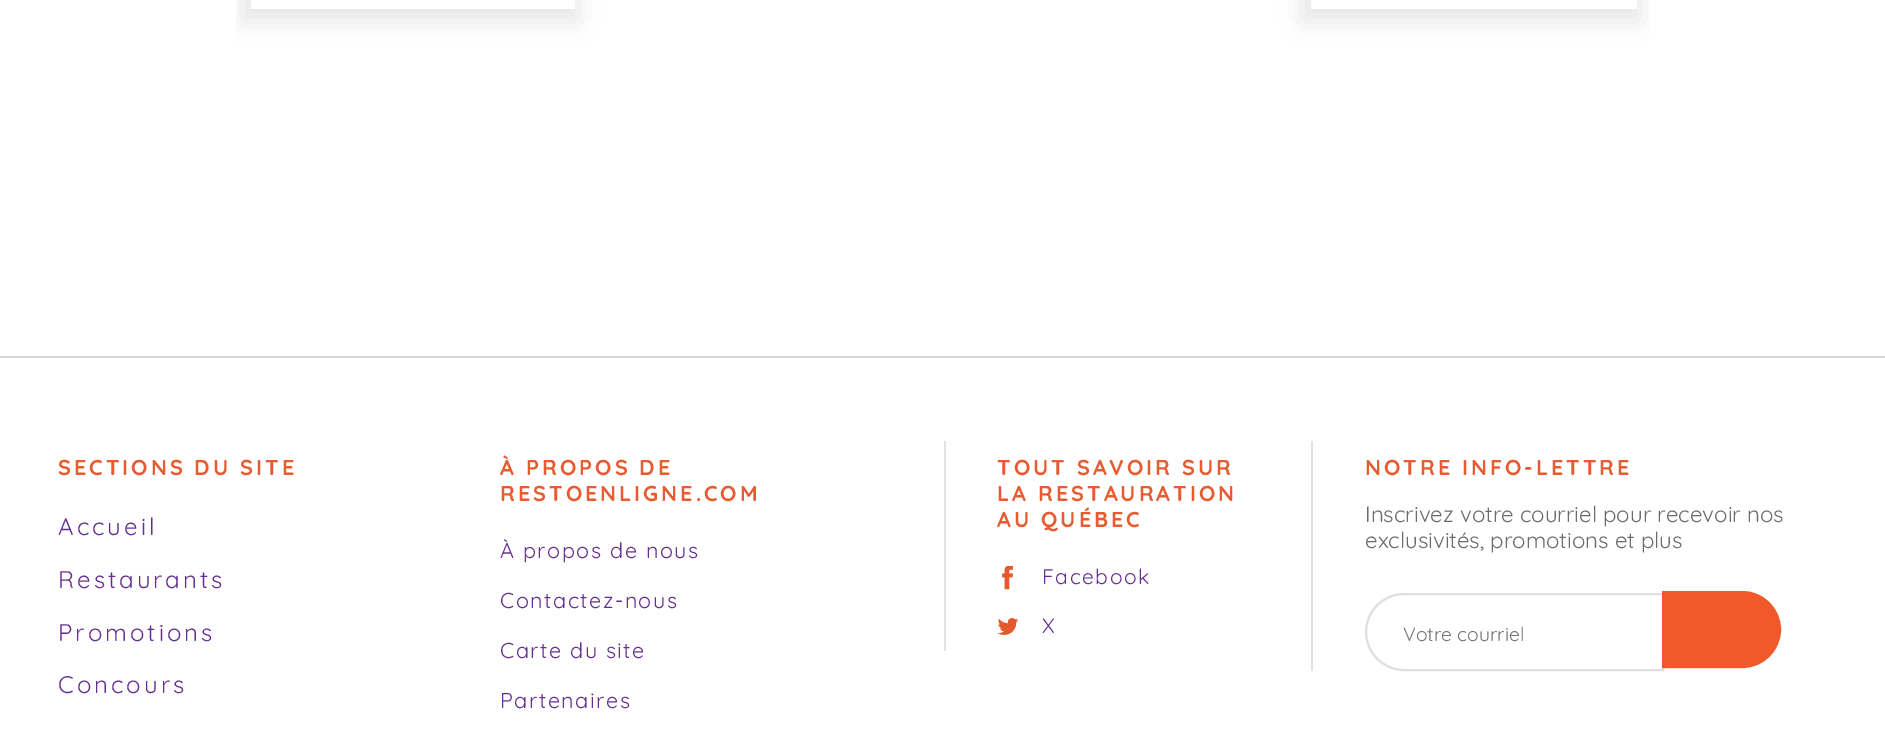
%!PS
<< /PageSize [1885 740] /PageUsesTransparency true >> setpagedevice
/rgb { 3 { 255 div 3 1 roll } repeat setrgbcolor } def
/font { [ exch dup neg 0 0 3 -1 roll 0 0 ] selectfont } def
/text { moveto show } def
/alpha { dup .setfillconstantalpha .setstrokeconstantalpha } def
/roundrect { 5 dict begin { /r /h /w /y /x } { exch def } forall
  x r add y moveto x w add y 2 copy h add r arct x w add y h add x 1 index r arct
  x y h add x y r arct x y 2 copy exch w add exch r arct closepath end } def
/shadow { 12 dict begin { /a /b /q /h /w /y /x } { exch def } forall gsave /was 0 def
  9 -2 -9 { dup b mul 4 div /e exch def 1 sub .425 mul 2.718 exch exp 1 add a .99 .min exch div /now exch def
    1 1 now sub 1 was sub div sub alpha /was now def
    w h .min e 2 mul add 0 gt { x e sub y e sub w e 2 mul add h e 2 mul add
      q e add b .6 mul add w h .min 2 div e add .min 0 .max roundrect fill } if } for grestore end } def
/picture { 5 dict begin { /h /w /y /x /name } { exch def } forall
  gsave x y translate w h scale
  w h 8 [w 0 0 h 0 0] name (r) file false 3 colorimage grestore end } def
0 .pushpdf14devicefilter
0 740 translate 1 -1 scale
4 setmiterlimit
255 255 255 rgb
0 0 1885 740 rectfill
gsave
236 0 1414 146 rectclip
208 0 moveto 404 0 rlineto 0 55 rlineto -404 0 rlineto closepath 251 -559 moveto 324 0 rlineto 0 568 rlineto -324 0 rlineto closepath eoclip newpath
0 0 0 rgb
242 -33 336 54 0 11 0.1 shadow
grestore
gsave
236 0 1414 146 rectclip
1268 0 moveto 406 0 rlineto 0 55 rlineto -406 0 rlineto closepath 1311 -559 moveto 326 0 rlineto 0 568 rlineto -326 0 rlineto closepath eoclip newpath
0 0 0 rgb
1302 -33 338 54 0 11 0.1 shadow
grestore
213 213 213 rgb
0 356 1885 2 rectfill
226 226 226 rgb
944 441 2 210 rectfill
(img_01.rgb) 1002 566 11 24 picture
(img_02.rgb) 998 618 21 17 picture
1311 441 2 230 rectfill
223 223 223 rgb
2 setlinewidth
1404 594 moveto 259 0 rlineto 0 76 rlineto -259 0 rlineto -21 0 -38 -17 -38 -38 rcurveto 0 -21 17 -38 38 -38 rcurveto closepath stroke
241 89 42 rgb
1663 592 moveto 79.5 0 rlineto 20.5 0 37.5 17 37.5 37.5 rcurveto 0 20.5 -17 37.5 -37.5 37.5 rcurveto -79.5 0 rlineto closepath gsave fill grestore
stroke
/Quicksand-Bold 21.6 font
231 91 48 rgb
58 475 moveto 3 0 (SECTIONS DU SITE) ashow
/Quicksand-Regular 24 font
102 45 145 rgb
58 535 moveto 3 0 (Accueil) ashow
58 588 moveto 3 0 (Restaurants) ashow
58 641 moveto 3 0 (Promotions) ashow
58 693 moveto 3 0 (Concours) ashow
/Quicksand-Bold 21.6 font
231 91 48 rgb
500 475 moveto 3 0 (À PROPOS DE) ashow
500 501 moveto 3 0 (RESTOENLIGNE.COM) ashow
/Quicksand-Regular 21.6 font
102 45 145 rgb
500 558 moveto 1.5 0 (À propos de nous) ashow
500 608 moveto 1.5 0 (Contactez-nous) ashow
500 658 moveto 1.5 0 (Carte du site) ashow
500 708 moveto 1.5 0 (Partenaires) ashow
/Quicksand-Bold 21.6 font
231 91 48 rgb
997 475 moveto 3 0 (TOUT SAVOIR SUR) ashow
997 501 moveto 3 0 (LA RESTAURATION) ashow
997 527 moveto 3 0 (AU QUÉBEC) ashow
/Quicksand-Regular 21 font
102 45 145 rgb
1042 584 moveto 1.5 0 (Facebook) ashow
1042 633 moveto 1.5 0 (X) ashow
/Quicksand-Bold 21.6 font
231 91 48 rgb
1365 475 moveto 3 0 (NOTRE INFO-LETTRE) ashow
/Quicksand-Regular 22.25 font
107 107 107 rgb
(Inscrivez votre courriel pour recevoir nos) 1365 522 text
(exclusivités, promotions et plus) 1365 548 text
/Quicksand-Regular 19.25 font
117 117 117 rgb
(Votre courriel) 1403 641 text
.poppdf14devicefilter showpage
